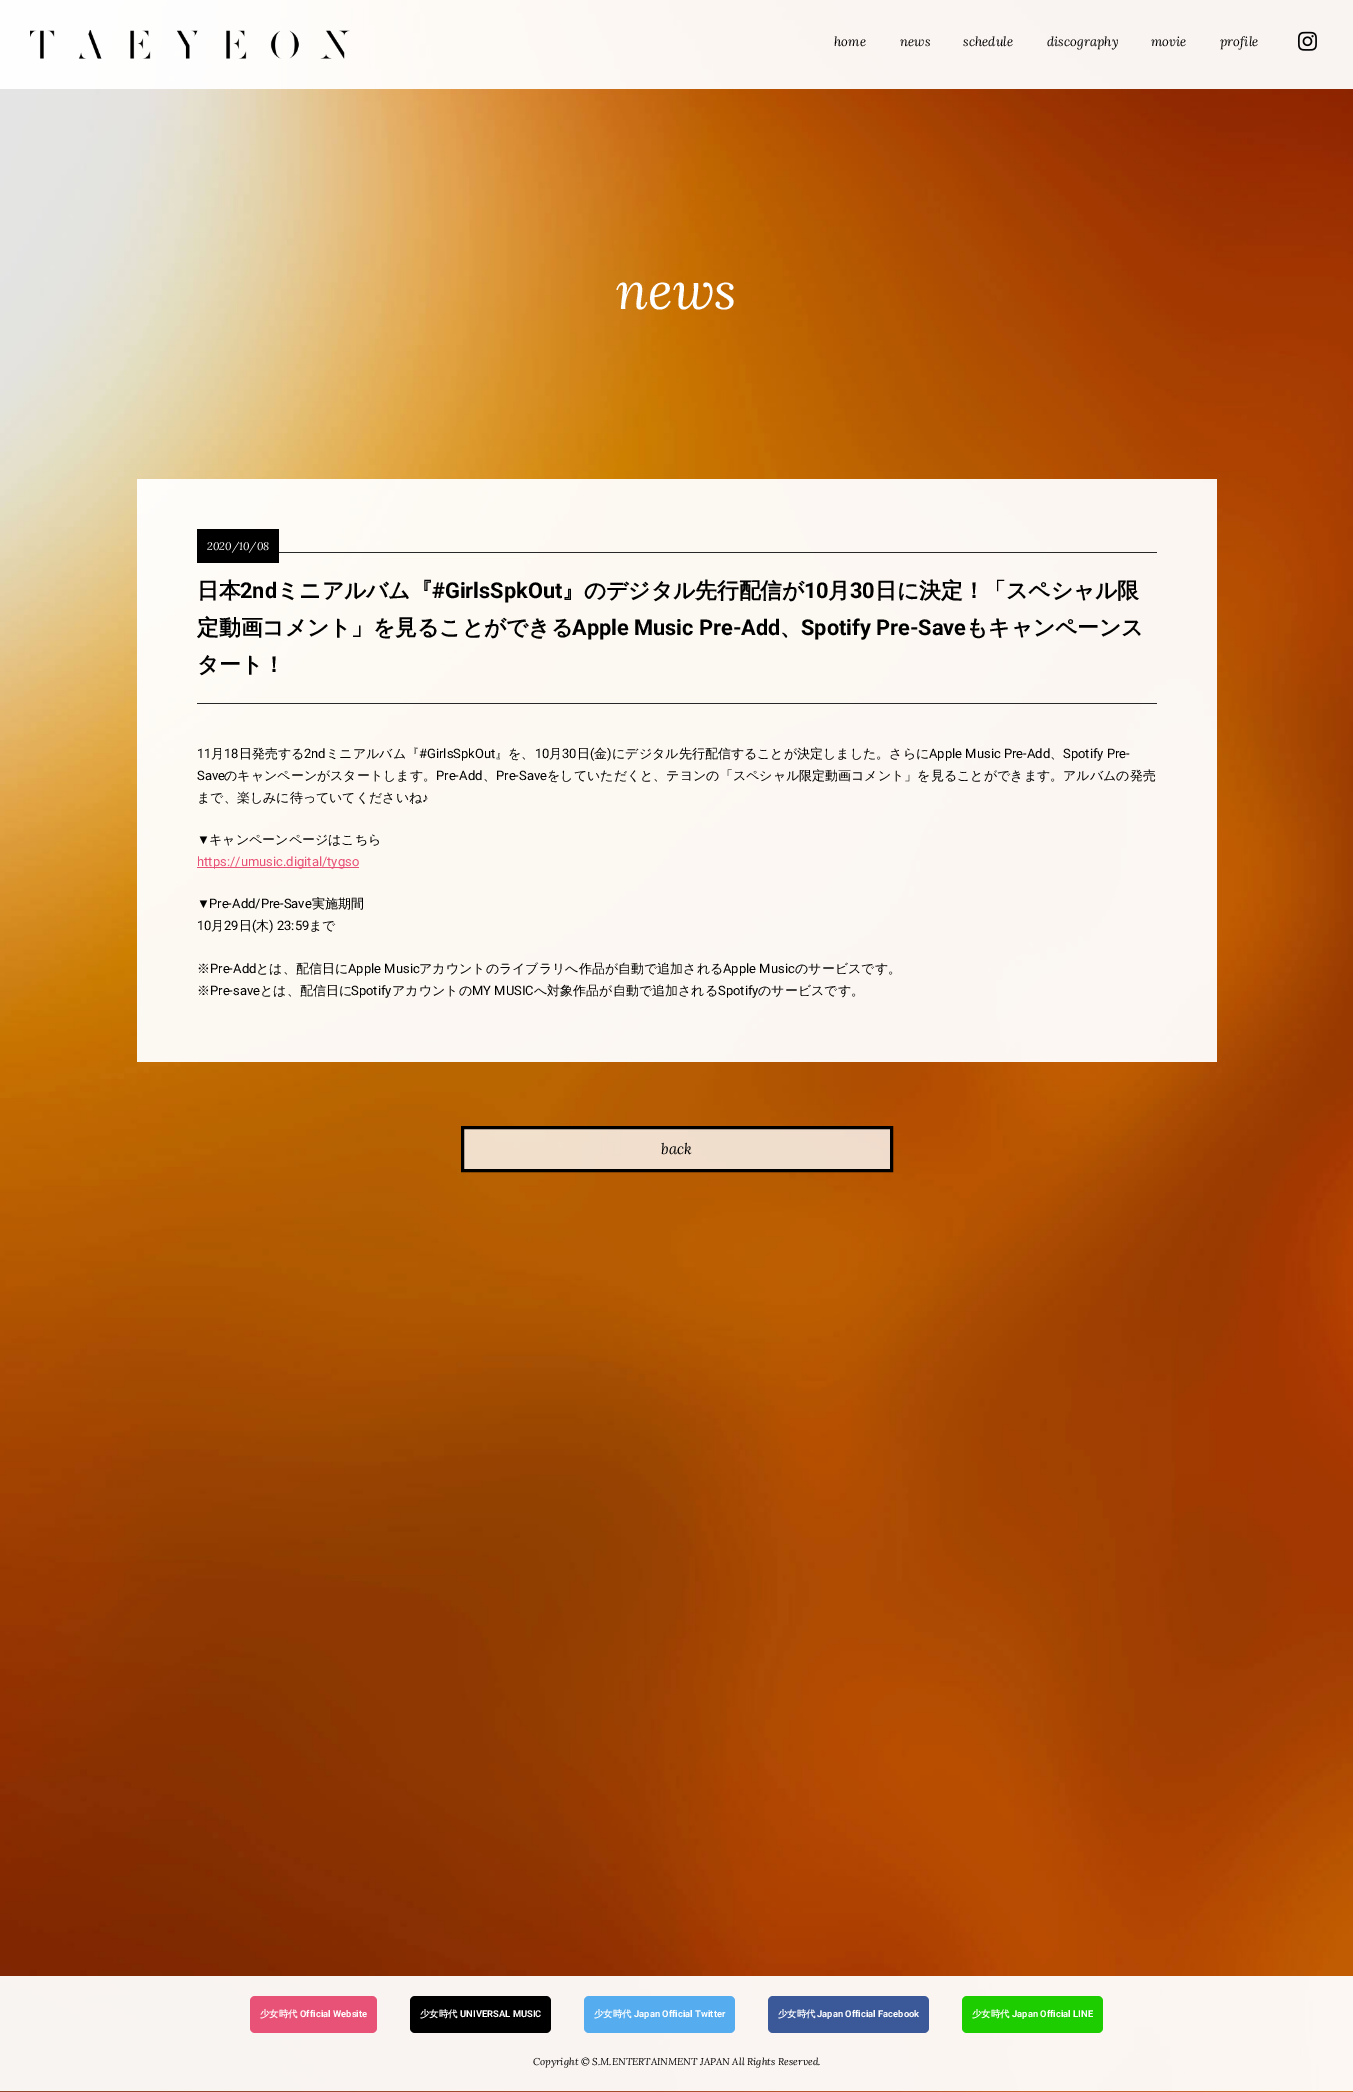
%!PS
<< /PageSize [1353 2092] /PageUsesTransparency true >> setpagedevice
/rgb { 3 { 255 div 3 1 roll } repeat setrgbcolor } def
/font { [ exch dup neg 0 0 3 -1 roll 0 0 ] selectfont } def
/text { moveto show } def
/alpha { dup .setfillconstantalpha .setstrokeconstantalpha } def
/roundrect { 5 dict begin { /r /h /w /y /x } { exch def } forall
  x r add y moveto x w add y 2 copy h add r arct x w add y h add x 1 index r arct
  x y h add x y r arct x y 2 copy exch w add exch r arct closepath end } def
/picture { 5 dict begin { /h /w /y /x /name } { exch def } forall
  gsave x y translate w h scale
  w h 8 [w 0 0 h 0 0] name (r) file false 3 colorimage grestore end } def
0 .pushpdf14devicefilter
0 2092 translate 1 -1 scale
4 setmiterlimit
255 255 255 rgb
0 0 1353 2092 rectfill
(img_01.rgb) 0 0 1353 2092 picture
0.95 alpha
0 0 1353 89 rectfill
1 alpha
(img_02.rgb) 30 30 320 29 picture
(img_03.rgb) 1298 31 19 20 picture
0.95 alpha
137 479 1080 583 rectfill
1 alpha
0 0 0 rgb
197 529 82 34 rectfill
40 40 40 rgb
279 552 878 1 rectfill
197 703 960 1 rectfill
232 82 119 rgb
197 867 162 1 rectfill
0.8 alpha
255 255 255 rgb
462.5 1127.5 moveto 429 0 rlineto 0 43 rlineto -429 0 rlineto closepath fill
1 alpha
0 0 0 rgb
3 setlinewidth
462.5 1127.5 moveto 429 0 rlineto 0 43 rlineto -429 0 rlineto closepath stroke
0.95 alpha
255 255 255 rgb
0 1976 1353 115 rectfill
1 alpha
232 82 119 rgb
250 1996 127 37 5 roundrect fill
0 0 0 rgb
410 1996 141 37 5 roundrect fill
85 172 238 rgb
584 1996 151 37 5 roundrect fill
59 89 152 rgb
768 1996 161 37 5 roundrect fill
29 205 0 rgb
962 1996 141 37 5 roundrect fill
/Lora-Italic 13 font
0 0 0 rgb
(home) 834 46 text
(news) 900 46 text
(schedule) 963 46 text
(discography) 1047 46 text
(movie) 1151 46 text
(profile) 1220 46 text
/Lora-Italic 52 font
255 255 255 rgb
(news) 616 309 text
/Lora-Italic 11 font
(2020/10/08) 207 550 text
/WenQuanYiZenHei-Bold 21.75 font
0 0 0 rgb
(日本) 197 598 text
/Roboto-Bold 21.75 font
(2nd) 240 598 text
/WenQuanYiZenHei-Bold 21.75 font
(ミニアルバム『) 277 598 text
/Roboto-Bold 21.75 font
(#GirlsSpkOut) 432 598 text
/WenQuanYiZenHei-Bold 21.75 font
(』のデジタル先行配信が) 562 598 text
/Roboto-Bold 21.75 font
(10) 804 598 text
/WenQuanYiZenHei-Bold 21.75 font
(月) 828 598 text
/Roboto-Bold 21.75 font
(30) 850 598 text
/WenQuanYiZenHei-Bold 21.75 font
(日に決定！「スペシャル限) 875 598 text
(定動画コメント」を見ることができる) 197 635 text
/Roboto-Bold 21.75 font
(Apple Music Pre-Add) 572 635 text
/WenQuanYiZenHei-Bold 21.75 font
(、) 780 635 text
/Roboto-Bold 21.75 font
(Spotify Pre-Save) 801 635 text
/WenQuanYiZenHei-Bold 21.75 font
(もキャンペーンス) 966 635 text
(タート！) 197 672 text
/Roboto-Regular 13 font
(11) 197 758 text
/WenQuanYiZenHei-Medium 13 font
(月) 211 758 text
/Roboto-Regular 13 font
(18) 224 758 text
/WenQuanYiZenHei-Medium 13 font
(日発売する) 239 758 text
/Roboto-Regular 13 font
(2nd) 304 758 text
/WenQuanYiZenHei-Medium 13 font
(ミニアルバム『) 326 758 text
/Roboto-Regular 13 font
(#GirlsSpkOut) 419 758 text
/WenQuanYiZenHei-Medium 13 font
(』を、) 495 758 text
/Roboto-Regular 13 font
(10) 535 758 text
/WenQuanYiZenHei-Medium 13 font
(月) 549 758 text
/Roboto-Regular 13 font
(30) 562 758 text
/WenQuanYiZenHei-Medium 13 font
(日) 577 758 text
/Roboto-Regular 13 font
(\() 590 758 text
/WenQuanYiZenHei-Medium 13 font
(金) 594 758 text
/Roboto-Regular 13 font
(\)) 607 758 text
/WenQuanYiZenHei-Medium 13 font
(にデジタル先行配信することが決定しました。さらに) 612 758 text
/Roboto-Regular 13 font
(Apple Music Pre-Add) 929 758 text
/WenQuanYiZenHei-Medium 13 font
(、) 1050 758 text
/Roboto-Regular 13 font
(Spotify Pre-) 1063 758 text
(Save) 197 780 text
/WenQuanYiZenHei-Medium 13 font
(のキャンペーンがスタートします。) 224 780 text
/Roboto-Regular 13 font
(Pre-Add) 436 780 text
/WenQuanYiZenHei-Medium 13 font
(、) 483 780 text
/Roboto-Regular 13 font
(Pre-Save) 496 780 text
/WenQuanYiZenHei-Medium 13 font
(をしていただくと、テヨンの「スペシャル限定動画コメント」を見ることができます。アルバムの発売) 547 780 text
(まで、楽しみに待っていてくださいね) 197 802 text
/LiberationSans-Regular 13 font
(♪) 422 802 text
(▼) 197 844 text
/WenQuanYiZenHei-Medium 13 font
(キャンペーンページはこちら) 209 844 text
/Roboto-Regular 13 font
232 82 119 rgb
(https://umusic.digital/tygso) 197 866 text
/LiberationSans-Regular 13 font
0 0 0 rgb
(▼) 197 908 text
/Roboto-Regular 13 font
(Pre-Add/Pre-Save) 209 908 text
/WenQuanYiZenHei-Medium 13 font
(実施期間) 312 908 text
/Roboto-Regular 13 font
(10) 197 930 text
/WenQuanYiZenHei-Medium 13 font
(月) 211 930 text
/Roboto-Regular 13 font
(29) 224 930 text
/WenQuanYiZenHei-Medium 13 font
(日) 239 930 text
/Roboto-Regular 13 font
(\() 252 930 text
/WenQuanYiZenHei-Medium 13 font
(木) 256 930 text
/Roboto-Regular 13 font
(\) 23:59) 269 930 text
/WenQuanYiZenHei-Medium 13 font
(まで) 309 930 text
(※) 197 973 text
/Roboto-Regular 13 font
(Pre-Add) 210 973 text
/WenQuanYiZenHei-Medium 13 font
(とは、配信日に) 256 973 text
/Roboto-Regular 13 font
(Apple Music) 348 973 text
/WenQuanYiZenHei-Medium 13 font
(アカウントのライブラリへ作品が自動で追加される) 419 973 text
/Roboto-Regular 13 font
(Apple Music) 723 973 text
/WenQuanYiZenHei-Medium 13 font
(のサービスです。) 795 973 text
(※) 197 995 text
/Roboto-Regular 13 font
(Pre-save) 210 995 text
/WenQuanYiZenHei-Medium 13 font
(とは、配信日に) 260 995 text
/Roboto-Regular 13 font
(Spotify) 351 995 text
/WenQuanYiZenHei-Medium 13 font
(アカウントの) 392 995 text
/Roboto-Regular 13 font
(MY MUSIC) 472 995 text
/WenQuanYiZenHei-Medium 13 font
(へ対象作品が自動で追加される) 534 995 text
/Roboto-Regular 13 font
(Spotify) 718 995 text
/WenQuanYiZenHei-Medium 13 font
(のサービスです。) 758 995 text
/Lora-Italic 15 font
(back) 661 1154 text
/WenQuanYiZenHei-Bold 9.4 font
255 255 255 rgb
(少女時代) 260 2017 text
/Roboto-Bold 9.4 font
(Official Website) 300 2017 text
/WenQuanYiZenHei-Bold 9.4 font
(少女時代) 420 2017 text
/Roboto-Bold 9.4 font
(UNIVERSAL MUSIC) 460 2017 text
/WenQuanYiZenHei-Bold 9.4 font
(少女時代) 594 2017 text
/Roboto-Bold 9.4 font
(Japan Official Twitter) 634 2017 text
/WenQuanYiZenHei-Bold 9.4 font
(少女時代) 778 2017 text
/Roboto-Bold 9.4 font
(Japan Official Facebook) 817 2017 text
/WenQuanYiZenHei-Bold 9.4 font
(少女時代) 972 2017 text
/Roboto-Bold 9.4 font
(Japan Official LINE) 1012 2017 text
/Lora-Italic 10 font
0 0 0 rgb
(Copyright © S.M.ENTERTAINMENT JAPAN All Rights Reserved.) 533 2065 text
.poppdf14devicefilter showpage
